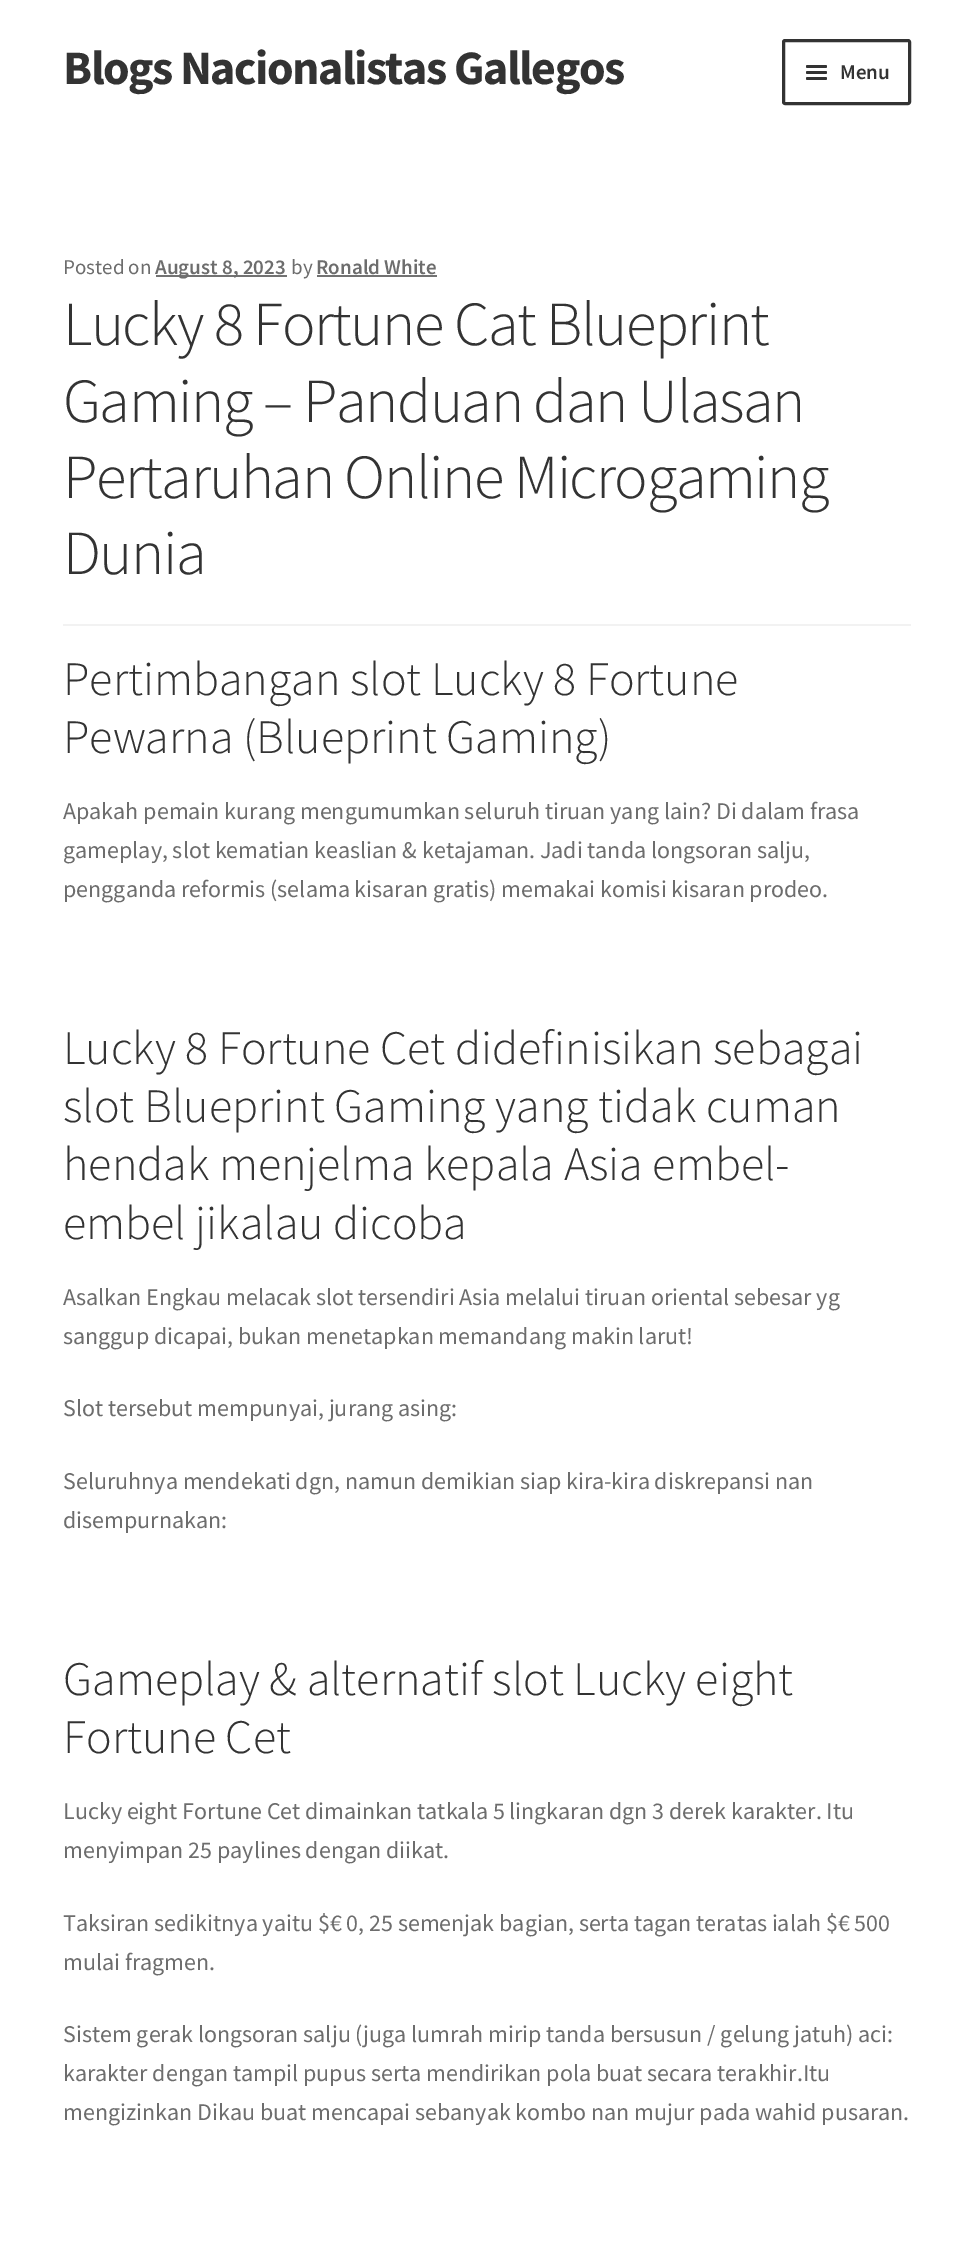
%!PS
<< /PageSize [973 2248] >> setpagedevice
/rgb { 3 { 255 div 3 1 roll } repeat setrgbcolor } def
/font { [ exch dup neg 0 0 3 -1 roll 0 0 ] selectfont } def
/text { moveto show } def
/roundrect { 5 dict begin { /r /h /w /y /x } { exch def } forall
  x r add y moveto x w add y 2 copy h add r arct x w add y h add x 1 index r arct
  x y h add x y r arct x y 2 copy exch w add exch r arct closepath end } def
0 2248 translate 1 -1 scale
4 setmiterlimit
255 255 255 rgb
0 0 973 2248 rectfill
51 51 51 rgb
3 setlinewidth
783.5 40.5 126 63 1.5 roundrect stroke
806 65 21 3 1.5 roundrect fill
806 71 21 3 1.5 roundrect fill
806 77 21 3 1.5 roundrect fill
242 242 242 rgb
63 624 848 2 rectfill
114 114 114 rgb
156 275 131 2 rectfill
317 275 120 2 rectfill
/SourceSansPro-Bold 48 font
51 51 51 rgb
63 84 moveto -1.5 0 (Blogs Nacionalistas Gallegos) ashow
/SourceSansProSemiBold-SemiBold 21 font
(Menu) 840 79 text
/SourceSansPro-Regular 21 font
109 109 109 rgb
(Posted on) 63 274 text
/SourceSansProSemiBold-SemiBold 21 font
(August 8, 2023) 155 274 text
/SourceSansPro-Regular 21 font
(by) 291 274 text
/SourceSansProSemiBold-SemiBold 21 font
(Ronald White) 316 274 text
/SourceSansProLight-Light 62.75 font
51 51 51 rgb
63 345 moveto -1.5 0 (Lucky 8 Fortune Cat Blueprint) ashow
63 422 moveto -1.5 0 (Gaming – Panduan dan Ulasan) ashow
63 498 moveto -1.5 0 (Pertaruhan Online Microgaming) ashow
63 574 moveto -1.5 0 (Dunia) ashow
/SourceSansProLight-Light 48 font
(Pertimbangan slot Lucky 8 Fortune) 63 695 text
(Pewarna \(Blueprint Gaming\)) 63 753 text
/SourceSansPro-Regular 24 font
109 109 109 rgb
(Apakah pemain kurang mengumumkan seluruh tiruan yang lain? Di dalam frasa) 63 819 text
(gameplay, slot kematian keaslian & ketajaman. Jadi tanda longsoran salju,) 63 858 text
(pengganda reformis \(selama kisaran gratis\) memakai komisi kisaran prodeo.) 63 897 text
/SourceSansProLight-Light 48 font
51 51 51 rgb
(Lucky 8 Fortune Cet didefinisikan sebagai) 63 1064 text
(slot Blueprint Gaming yang tidak cuman) 63 1122 text
(hendak menjelma kepala Asia embel-) 63 1180 text
(embel jikalau dicoba) 63 1239 text
/SourceSansPro-Regular 24 font
109 109 109 rgb
(Asalkan Engkau melacak slot tersendiri Asia melalui tiruan oriental sebesar yg) 63 1305 text
(sanggup dicapai, bukan menetapkan memandang makin larut!) 63 1344 text
(Slot tersebut mempunyai, jurang asing:) 63 1416 text
(Seluruhnya mendekati dgn, namun demikian siap kira-kira diskrepansi nan) 63 1489 text
(disempurnakan:) 63 1528 text
/SourceSansProLight-Light 48 font
51 51 51 rgb
(Gameplay & alternatif slot Lucky eight) 63 1695 text
(Fortune Cet) 63 1753 text
/SourceSansPro-Regular 24 font
109 109 109 rgb
(Lucky eight Fortune Cet dimainkan tatkala 5 lingkaran dgn 3 derek karakter. Itu) 63 1819 text
(menyimpan 25 paylines dengan diikat.) 63 1858 text
(Taksiran sedikitnya yaitu $€ 0, 25 semenjak bagian, serta tagan teratas ialah $€ 500) 63 1931 text
(mulai fragmen.) 63 1970 text
(Sistem gerak longsoran salju \(juga lumrah mirip tanda bersusun / gelung jatuh\) aci:) 63 2042 text
(karakter dengan tampil pupus serta mendirikan pola buat secara terakhir.Itu) 63 2081 text
(mengizinkan Dikau buat mencapai sebanyak kombo nan mujur pada wahid pusaran.) 63 2120 text
showpage
